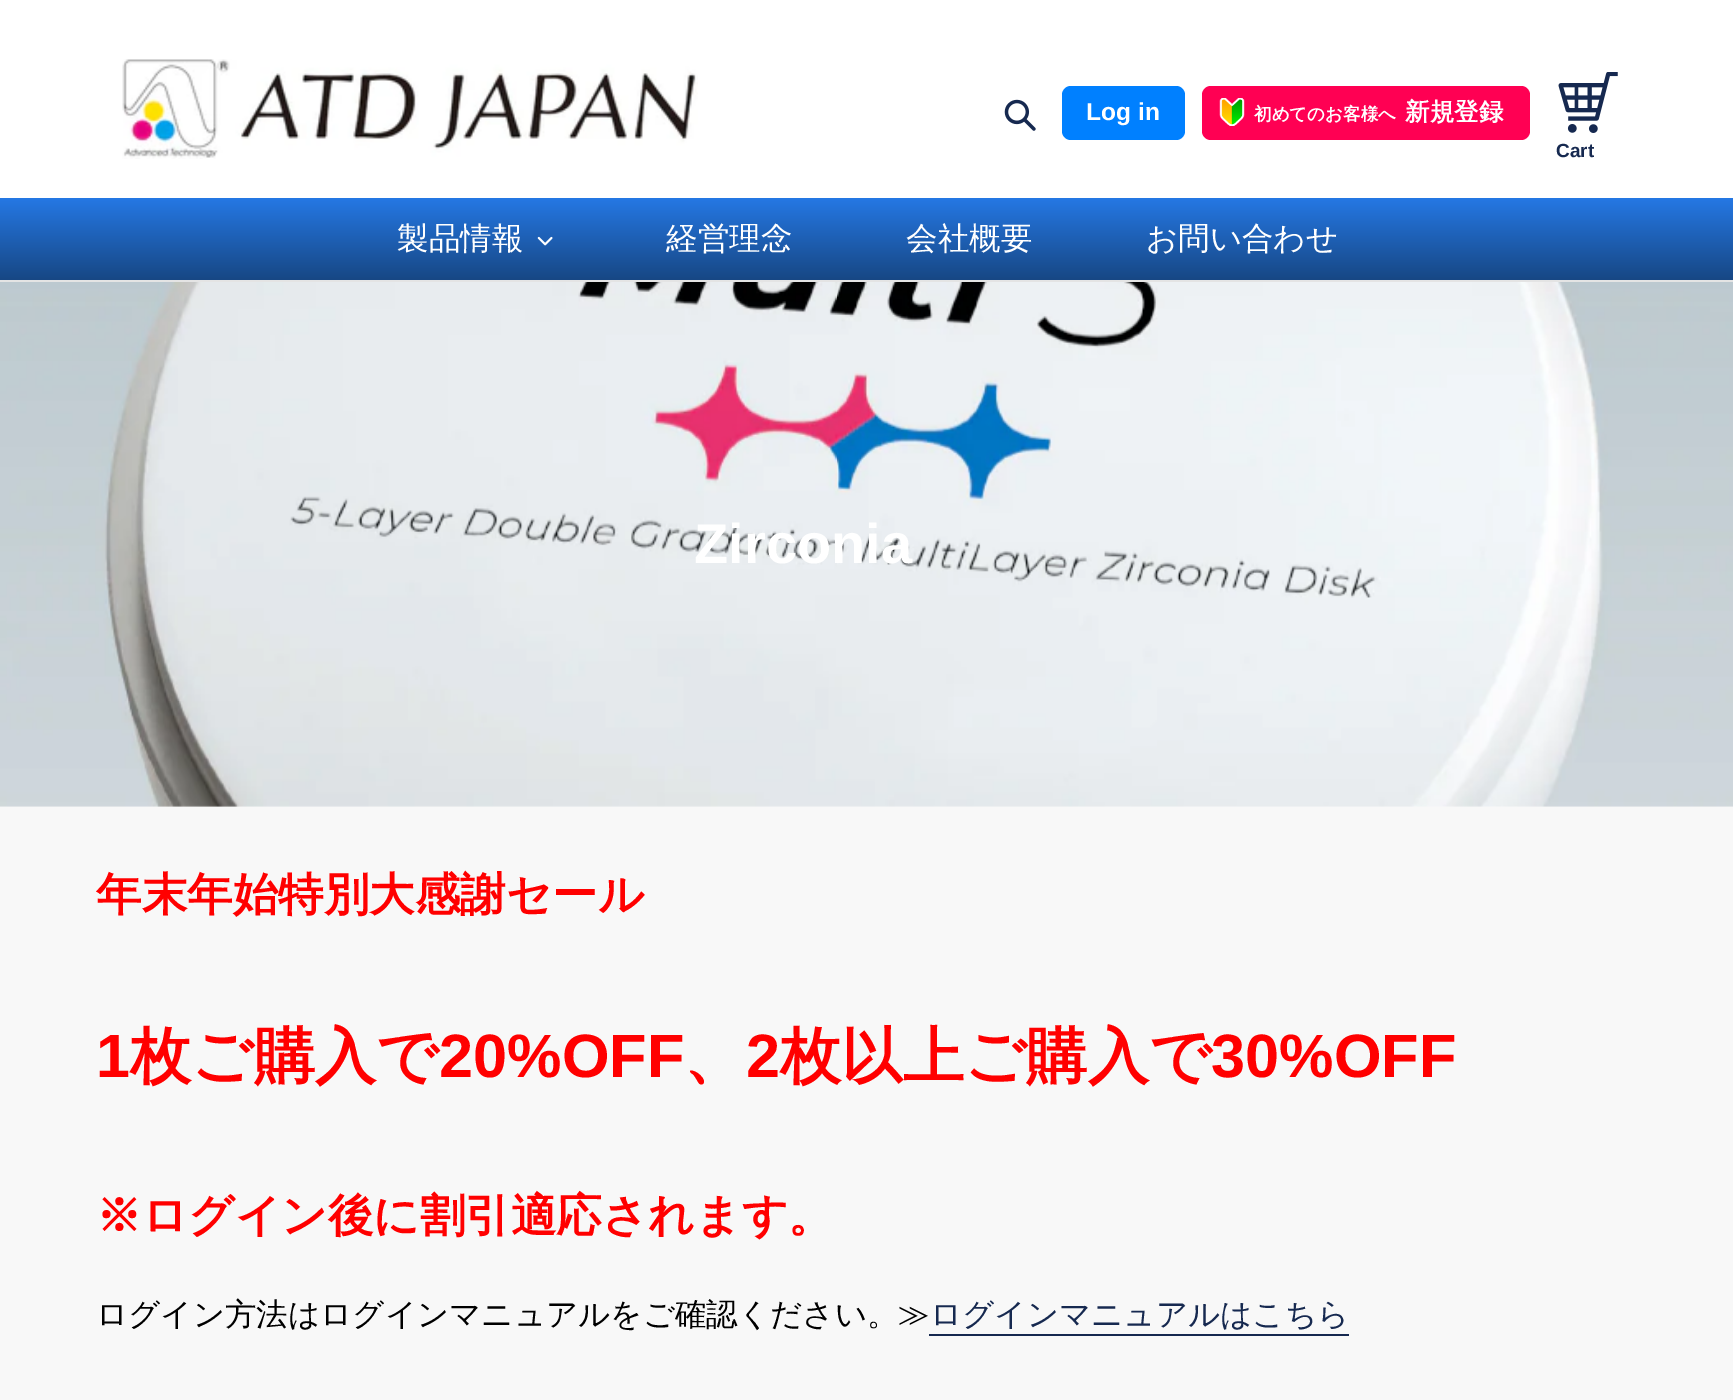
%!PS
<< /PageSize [1733 1400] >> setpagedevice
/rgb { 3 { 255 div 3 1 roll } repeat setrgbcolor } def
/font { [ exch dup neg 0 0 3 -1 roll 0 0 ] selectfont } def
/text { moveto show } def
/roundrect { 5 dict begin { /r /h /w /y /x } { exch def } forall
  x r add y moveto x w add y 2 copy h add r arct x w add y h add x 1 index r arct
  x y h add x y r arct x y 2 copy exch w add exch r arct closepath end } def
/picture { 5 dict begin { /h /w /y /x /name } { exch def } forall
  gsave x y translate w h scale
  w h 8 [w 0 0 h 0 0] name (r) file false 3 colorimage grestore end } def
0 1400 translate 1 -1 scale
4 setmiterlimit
248 248 248 rgb
0 0 1733 1400 rectfill
255 255 255 rgb
0 0 1733 198 rectfill
228 228 228 rgb
0 280 1733 2 rectfill
(img_01.rgb) 122 59 576 100 picture
(img_02.rgb) 1004 99 32 32 picture
0 128 255 rgb
1062 86 123 54 9 roundrect fill
255 0 83 rgb
1202 86 328 54 9 roundrect fill
(img_03.rgb) 1219 98 26 28 picture
(img_04.rgb) 1558 72 60 61 picture
gsave 0 198 moveto 1733 0 rlineto 0 82 rlineto -1733 0 rlineto closepath clip newpath
<< /ShadingType 2 /ColorSpace /DeviceRGB /Coords [867 198 867 280] /Extend [true true] /Function << /FunctionType 2 /Domain [0 1] /C0 [0.145 0.471 0.894] /C1 [0.09 0.278 0.518] /N 1 >> >> shfill grestore
(img_05.rgb) 537 236 16 10 picture
(img_06.rgb) 0 282 1733 525 picture
22 41 80 rgb
929 1334 420 2 rectfill
/LiberationSans-Bold 24.5 font
255 255 255 rgb
(Log in) 1086 120 text
/WenQuanYiZenHei-Bold 17.5 font
(初めてのお客様へ) 1254 120 text
/WenQuanYiZenHei-Bold 24.5 font
(新規登録) 1405 120 text
/LiberationSans-Bold 19 font
22 41 80 rgb
(Cart) 1556 157 text
/WenQuanYiZenHei-Medium 31.5 font
255 255 255 rgb
(製品情報) 397 249 text
(経営理念) 666 249 text
(会社概要) 906 249 text
(お問い合わせ) 1146 249 text
/LiberationSans-Bold 56 font
(Zirconia) 694 563 text
/WenQuanYiZenHei-Bold 45.5 font
255 0 0 rgb
(年末年始特別大感謝セール) 96 910 text
/LiberationSans-Bold 61.25 font
(1) 96 1077 text
/WenQuanYiZenHei-Bold 61.25 font
(枚ご購入で) 130 1077 text
/LiberationSans-Bold 61.25 font
(20%OFF) 439 1077 text
/WenQuanYiZenHei-Bold 61.25 font
(、) 684 1077 text
/LiberationSans-Bold 61.25 font
(2) 746 1077 text
/WenQuanYiZenHei-Bold 61.25 font
(枚以上ご購入で) 780 1077 text
/LiberationSans-Bold 61.25 font
(30%OFF) 1211 1077 text
/WenQuanYiZenHei-Bold 45.5 font
(※ログイン後に割引適応されます。) 96 1231 text
/WenQuanYiZenHei-Medium 31.5 font
0 0 0 rgb
(ログイン方法はログインマニュアルをご確認ください。≫) 96 1325 text
22 41 80 rgb
(ログインマニュアルはこちら) 930 1325 text
showpage
